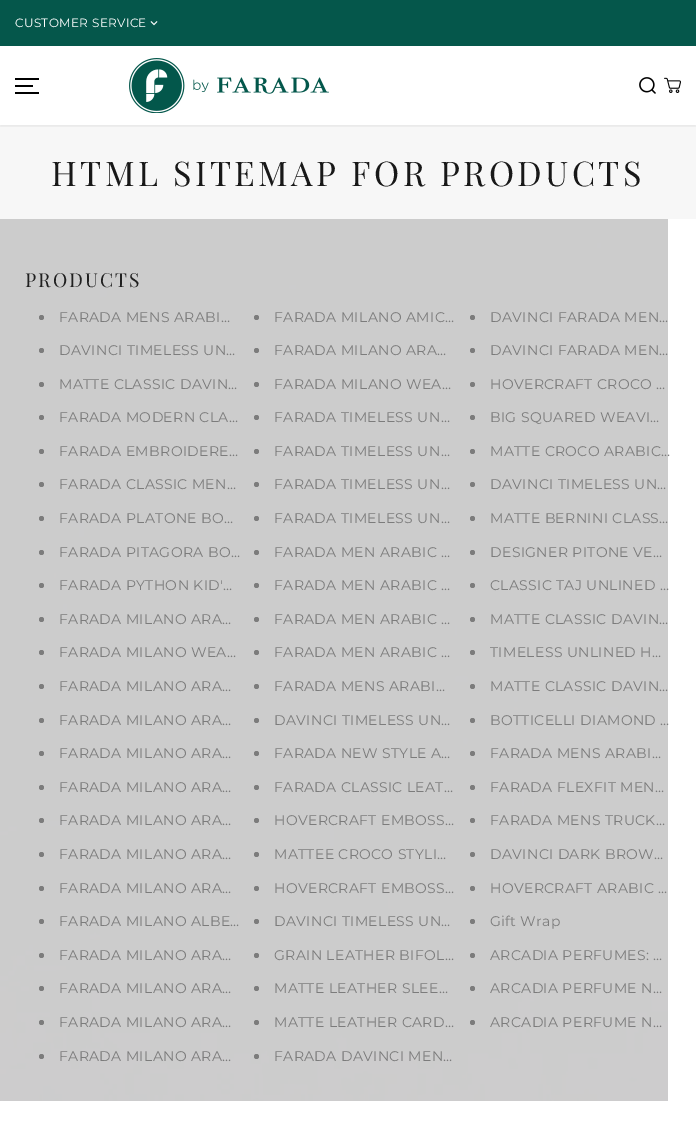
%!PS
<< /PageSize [696 1147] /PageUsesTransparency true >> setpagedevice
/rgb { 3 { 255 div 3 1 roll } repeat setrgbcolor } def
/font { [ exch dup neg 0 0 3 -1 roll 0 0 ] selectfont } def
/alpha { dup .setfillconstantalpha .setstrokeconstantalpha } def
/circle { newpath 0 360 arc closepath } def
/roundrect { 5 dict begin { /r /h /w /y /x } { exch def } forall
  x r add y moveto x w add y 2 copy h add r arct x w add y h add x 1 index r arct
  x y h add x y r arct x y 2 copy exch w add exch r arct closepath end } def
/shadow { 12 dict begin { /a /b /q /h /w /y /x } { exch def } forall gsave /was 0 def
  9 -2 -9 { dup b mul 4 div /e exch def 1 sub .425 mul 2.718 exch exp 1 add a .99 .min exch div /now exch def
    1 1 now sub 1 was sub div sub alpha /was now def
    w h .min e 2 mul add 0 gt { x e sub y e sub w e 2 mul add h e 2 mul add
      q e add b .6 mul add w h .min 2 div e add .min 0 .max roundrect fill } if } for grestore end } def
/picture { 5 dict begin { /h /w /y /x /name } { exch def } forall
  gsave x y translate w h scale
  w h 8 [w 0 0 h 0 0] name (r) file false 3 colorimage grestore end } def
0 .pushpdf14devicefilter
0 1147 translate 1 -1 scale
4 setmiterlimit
255 255 255 rgb
0 0 696 1147 rectfill
5 87 75 rgb
0 0 696 46 rectfill
(img_01.rgb) 150 21 8 5 picture
247 247 247 rgb
0 125 696 94 rectfill
gsave
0 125 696 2 rectclip
0 0 0 rgb
0 48 696 79 0 1 0.05 shadow
grestore
0 0 0 rgb
15 85 18 2 rectfill
15 78 24 2 rectfill
15 92 24 2 rectfill
(img_02.rgb) 129 58 200 55 picture
(img_03.rgb) 639 77 17 17 picture
(img_04.rgb) 664 77 17 16 picture
(img_05.rgb) 0 219 668 882 picture
124 124 124 rgb
41.5 317.5 2.5 circle fill
256.5 317.5 2.5 circle fill
472.5 317.5 2.5 circle fill
41.5 350.5 2.5 circle fill
256.5 350.5 2.5 circle fill
472.5 350.5 2.5 circle fill
41.5 384.5 2.5 circle fill
256.5 384.5 2.5 circle fill
472.5 384.5 2.5 circle fill
41.5 417.5 2.5 circle fill
256.5 417.5 2.5 circle fill
472.5 417.5 2.5 circle fill
41.5 451.5 2.5 circle fill
256.5 451.5 2.5 circle fill
472.5 451.5 2.5 circle fill
41.5 484.5 2.5 circle fill
256.5 484.5 2.5 circle fill
472.5 484.5 2.5 circle fill
41.5 518.5 2.5 circle fill
256.5 518.5 2.5 circle fill
472.5 518.5 2.5 circle fill
41.5 552.5 2.5 circle fill
256.5 552.5 2.5 circle fill
472.5 552.5 2.5 circle fill
41.5 585.5 2.5 circle fill
256.5 585.5 2.5 circle fill
472.5 585.5 2.5 circle fill
41.5 619.5 2.5 circle fill
256.5 619.5 2.5 circle fill
472.5 619.5 2.5 circle fill
41.5 652.5 2.5 circle fill
256.5 652.5 2.5 circle fill
472.5 652.5 2.5 circle fill
41.5 686.5 2.5 circle fill
256.5 686.5 2.5 circle fill
472.5 686.5 2.5 circle fill
41.5 720.5 2.5 circle fill
256.5 720.5 2.5 circle fill
472.5 720.5 2.5 circle fill
41.5 753.5 2.5 circle fill
256.5 753.5 2.5 circle fill
472.5 753.5 2.5 circle fill
41.5 787.5 2.5 circle fill
256.5 787.5 2.5 circle fill
472.5 787.5 2.5 circle fill
41.5 820.5 2.5 circle fill
256.5 820.5 2.5 circle fill
472.5 820.5 2.5 circle fill
41.5 854.5 2.5 circle fill
256.5 854.5 2.5 circle fill
472.5 854.5 2.5 circle fill
41.5 888.5 2.5 circle fill
256.5 888.5 2.5 circle fill
472.5 888.5 2.5 circle fill
41.5 921.5 2.5 circle fill
256.5 921.5 2.5 circle fill
472.5 921.5 2.5 circle fill
41.5 955.5 2.5 circle fill
256.5 955.5 2.5 circle fill
472.5 955.5 2.5 circle fill
41.5 988.5 2.5 circle fill
256.5 988.5 2.5 circle fill
472.5 988.5 2.5 circle fill
41.5 1022.5 2.5 circle fill
256.5 1022.5 2.5 circle fill
472.5 1022.5 2.5 circle fill
41.5 1056.5 2.5 circle fill
256.5 1056.5 2.5 circle fill
/Montserrat-Regular 12 font
255 255 255 rgb
15 27 moveto 0.35 0 (CUSTOMER SERVICE) ashow
/PlayfairDisplay-Regular 34 font
24 24 24 rgb
51 186 moveto 3.4 0 (HTML SITEMAP FOR PRODUCTS) ashow
/PlayfairDisplay-Regular 19.25 font
32 32 32 rgb
25 287 moveto 2 0 (PRODUCTS) ashow
/Montserrat-Regular 14 font
124 124 124 rgb
59 322 moveto 0.35 0 (FARADA MENS ARABI…) ashow
274 322 moveto 0.35 0 (FARADA MILANO AMIC…) ashow
490 322 moveto 0.35 0 (DAVINCI FARADA MEN…) ashow
59 355 moveto 0.35 0 (DAVINCI TIMELESS UN…) ashow
274 355 moveto 0.35 0 (FARADA MILANO ARA…) ashow
490 355 moveto 0.35 0 (DAVINCI FARADA MEN…) ashow
59 389 moveto 0.35 0 (MATTE CLASSIC DAVIN…) ashow
274 389 moveto 0.35 0 (FARADA MILANO WEA…) ashow
490 389 moveto 0.35 0 (HOVERCRAFT CROCO …) ashow
59 422 moveto 0.35 0 (FARADA MODERN CLA…) ashow
274 422 moveto 0.35 0 (FARADA TIMELESS UN…) ashow
490 422 moveto 0.35 0 (BIG SQUARED WEAVI…) ashow
59 456 moveto 0.35 0 (FARADA EMBROIDERE…) ashow
274 456 moveto 0.35 0 (FARADA TIMELESS UN…) ashow
490 456 moveto 0.35 0 (MATTE CROCO ARABIC…) ashow
59 489 moveto 0.35 0 (FARADA CLASSIC MEN…) ashow
274 489 moveto 0.35 0 (FARADA TIMELESS UN…) ashow
490 489 moveto 0.35 0 (DAVINCI TIMELESS UN…) ashow
59 523 moveto 0.35 0 (FARADA PLATONE BO…) ashow
274 523 moveto 0.35 0 (FARADA TIMELESS UN…) ashow
490 523 moveto 0.35 0 (MATTE BERNINI CLASS…) ashow
59 557 moveto 0.35 0 (FARADA PITAGORA BO…) ashow
274 557 moveto 0.35 0 (FARADA MEN ARABIC …) ashow
490 557 moveto 0.35 0 (DESIGNER PITONE VE…) ashow
59 590 moveto 0.35 0 (FARADA PYTHON KID'…) ashow
274 590 moveto 0.35 0 (FARADA MEN ARABIC …) ashow
490 590 moveto 0.35 0 (CLASSIC TAJ UNLINED …) ashow
59 624 moveto 0.35 0 (FARADA MILANO ARA…) ashow
274 624 moveto 0.35 0 (FARADA MEN ARABIC …) ashow
490 624 moveto 0.35 0 (MATTE CLASSIC DAVIN…) ashow
59 657 moveto 0.35 0 (FARADA MILANO WEA…) ashow
274 657 moveto 0.35 0 (FARADA MEN ARABIC …) ashow
490 657 moveto 0.35 0 (TIMELESS UNLINED H…) ashow
59 691 moveto 0.35 0 (FARADA MILANO ARA…) ashow
274 691 moveto 0.35 0 (FARADA MENS ARABI…) ashow
490 691 moveto 0.35 0 (MATTE CLASSIC DAVIN…) ashow
59 725 moveto 0.35 0 (FARADA MILANO ARA…) ashow
274 725 moveto 0.35 0 (DAVINCI TIMELESS UN…) ashow
490 725 moveto 0.35 0 (BOTTICELLI DIAMOND …) ashow
59 758 moveto 0.35 0 (FARADA MILANO ARA…) ashow
274 758 moveto 0.35 0 (FARADA NEW STYLE A…) ashow
490 758 moveto 0.35 0 (FARADA MENS ARABI…) ashow
59 792 moveto 0.35 0 (FARADA MILANO ARA…) ashow
274 792 moveto 0.35 0 (FARADA CLASSIC LEAT…) ashow
490 792 moveto 0.35 0 (FARADA FLEXFIT MEN…) ashow
59 825 moveto 0.35 0 (FARADA MILANO ARA…) ashow
274 825 moveto 0.35 0 (HOVERCRAFT EMBOSS…) ashow
490 825 moveto 0.35 0 (FARADA MENS TRUCK…) ashow
59 859 moveto 0.35 0 (FARADA MILANO ARA…) ashow
274 859 moveto 0.35 0 (MATTEE CROCO STYLI…) ashow
490 859 moveto 0.35 0 (DAVINCI DARK BROW…) ashow
59 893 moveto 0.35 0 (FARADA MILANO ARA…) ashow
274 893 moveto 0.35 0 (HOVERCRAFT EMBOSS…) ashow
490 893 moveto 0.35 0 (HOVERCRAFT ARABIC …) ashow
59 926 moveto 0.35 0 (FARADA MILANO ALBE…) ashow
274 926 moveto 0.35 0 (DAVINCI TIMELESS UN…) ashow
490 926 moveto 0.35 0 (Gift Wrap) ashow
59 960 moveto 0.35 0 (FARADA MILANO ARA…) ashow
274 960 moveto 0.35 0 (GRAIN LEATHER BIFOL…) ashow
490 960 moveto 0.35 0 (ARCADIA PERFUMES: …) ashow
59 993 moveto 0.35 0 (FARADA MILANO ARA…) ashow
274 993 moveto 0.35 0 (MATTE LEATHER SLEE…) ashow
490 993 moveto 0.35 0 (ARCADIA PERFUME N…) ashow
59 1027 moveto 0.35 0 (FARADA MILANO ARA…) ashow
274 1027 moveto 0.35 0 (MATTE LEATHER CARD…) ashow
490 1027 moveto 0.35 0 (ARCADIA PERFUME N…) ashow
59 1061 moveto 0.35 0 (FARADA MILANO ARA…) ashow
274 1061 moveto 0.35 0 (FARADA DAVINCI MEN…) ashow
.poppdf14devicefilter showpage
